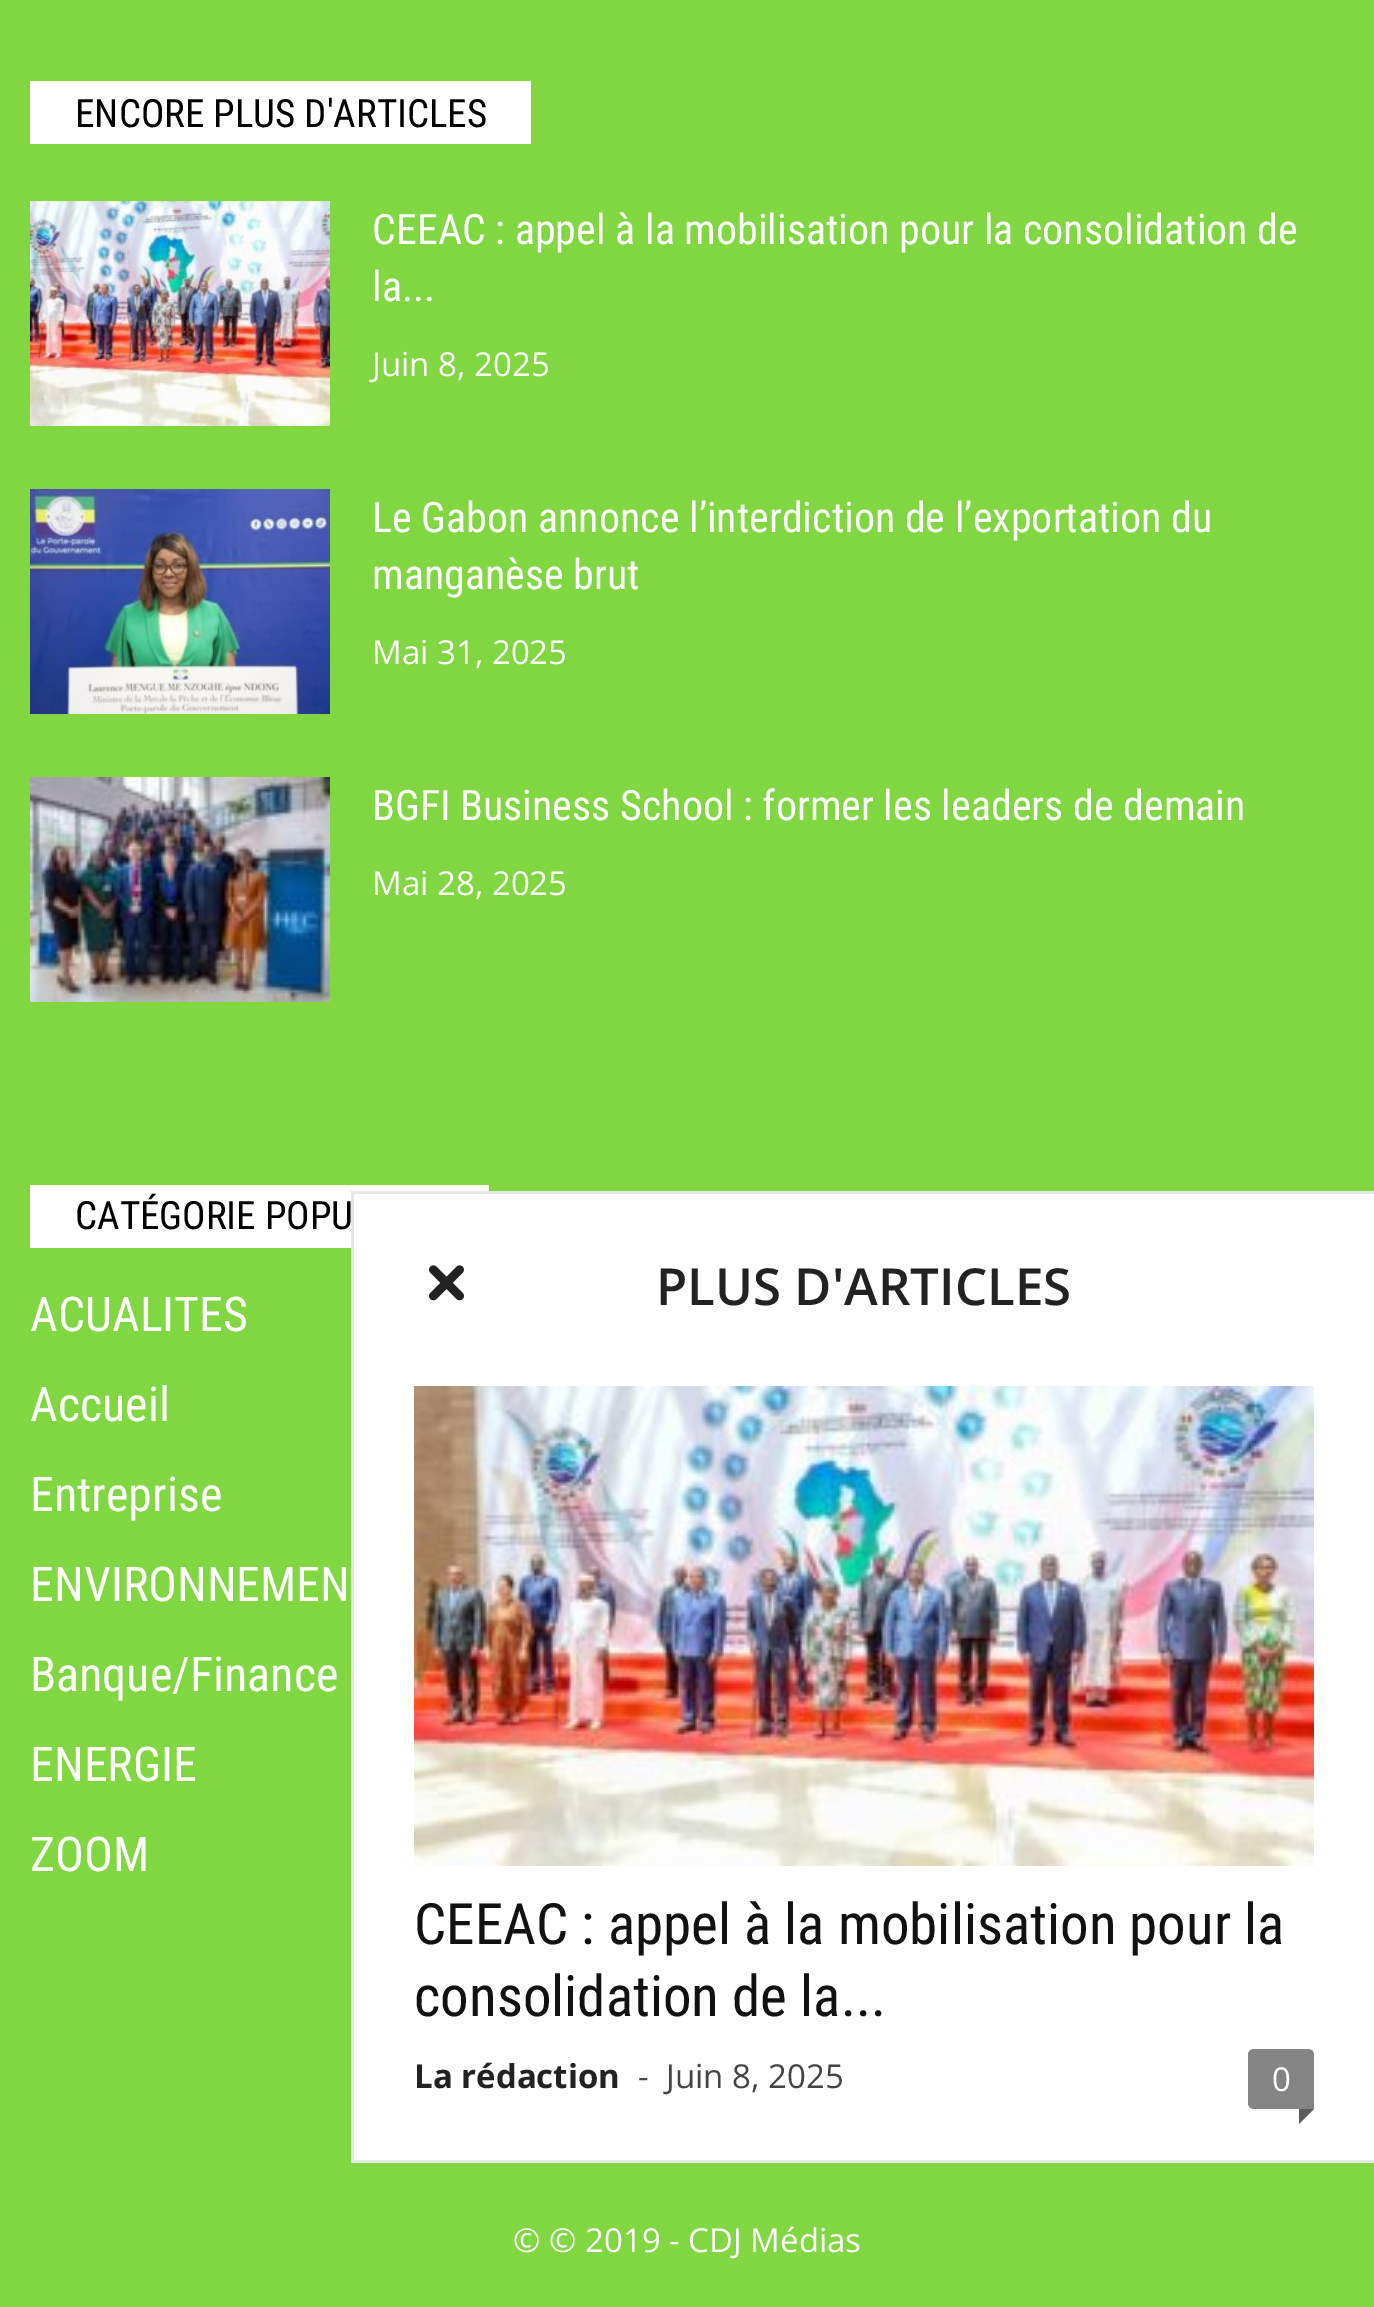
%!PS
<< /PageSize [1374 2307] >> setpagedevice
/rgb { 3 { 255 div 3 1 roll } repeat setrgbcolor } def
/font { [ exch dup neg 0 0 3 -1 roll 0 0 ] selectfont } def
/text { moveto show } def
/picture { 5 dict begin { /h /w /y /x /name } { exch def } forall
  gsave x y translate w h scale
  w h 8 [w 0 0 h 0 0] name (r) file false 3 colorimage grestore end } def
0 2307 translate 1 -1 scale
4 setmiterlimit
129 215 66 rgb
0 0 1374 2307 rectfill
255 255 255 rgb
30 81 501 63 rectfill
(img_01.rgb) 30 201 300 225 picture
(img_02.rgb) 30 489 300 225 picture
(img_03.rgb) 30 777 300 225 picture
30 1185 459 63 rectfill
354 1194 1020 966 rectfill
230 230 230 rgb
351 1191 1023 3 rectfill
351 2160 1023 3 rectfill
351 1191 3 972 rectfill
(img_04.rgb) 429 1265 35 36 picture
(img_05.rgb) 414 1386 900 480 picture
132 132 132 rgb
1254 2049 moveto 54 0 rlineto 3.5 0 6 2.5 6 6 rcurveto 0 54 rlineto -60 0 rlineto -3.5 0 -6 -2.5 -6 -6 rcurveto 0 -48 rlineto 0 -3.5 2.5 -6 6 -6 rcurveto closepath fill
91 91 91 rgb
1299 2109 moveto 15 0 rlineto -15 15 rlineto closepath fill
/RobotoCondensed-Regular 39 font
0 0 0 rgb
(ENCORE PLUS D'ARTICLES) 75 127 text
/RobotoCondensed-Regular 42 font
255 255 255 rgb
(CEEAC : appel à la mobilisation pour la consolidation de) 372 244 text
(la...) 372 301 text
/OpenSans-Regular 33 font
(Juin 8, 2025) 372 376 text
/RobotoCondensed-Regular 42 font
(Le Gabon annonce l’interdiction de l’exportation du) 372 532 text
(manganèse brut) 372 589 text
/OpenSans-Regular 33 font
(Mai 31, 2025) 372 664 text
/RobotoCondensed-Regular 42 font
(BGFI Business School : former les leaders de demain) 372 820 text
/OpenSans-Regular 33 font
(Mai 28, 2025) 372 895 text
/RobotoCondensed-Regular 39 font
0 0 0 rgb
(CATÉGORIE POPU) 75 1229 text
/RobotoCondensed-Regular 48 font
255 255 255 rgb
(ACUALITES) 30 1331 text
(Accueil) 30 1421 text
(Entreprise) 30 1511 text
(ENVIRONNEMEN) 30 1601 text
(Banque/Finance) 30 1691 text
(ENERGIE) 30 1781 text
(ZOOM) 30 1871 text
/OpenSans-Regular 33 font
(© © 2019 - CDJ Médias) 513 2252 text
/OpenSans-SemiBold 51 font
34 34 34 rgb
(PLUS D'ARTICLES) 656 1305 text
/RobotoCondensed-Regular 57 font
17 17 17 rgb
(CEEAC : appel à la mobilisation pour la) 414 1944 text
(consolidation de la...) 414 2016 text
/OpenSans-Bold 33 font
34 34 34 rgb
(La rédaction) 414 2088 text
/OpenSans-Regular 33 font
68 68 68 rgb
(-) 638 2088 text
(Juin 8, 2025) 666 2088 text
255 255 255 rgb
(0) 1272 2091 text
showpage
